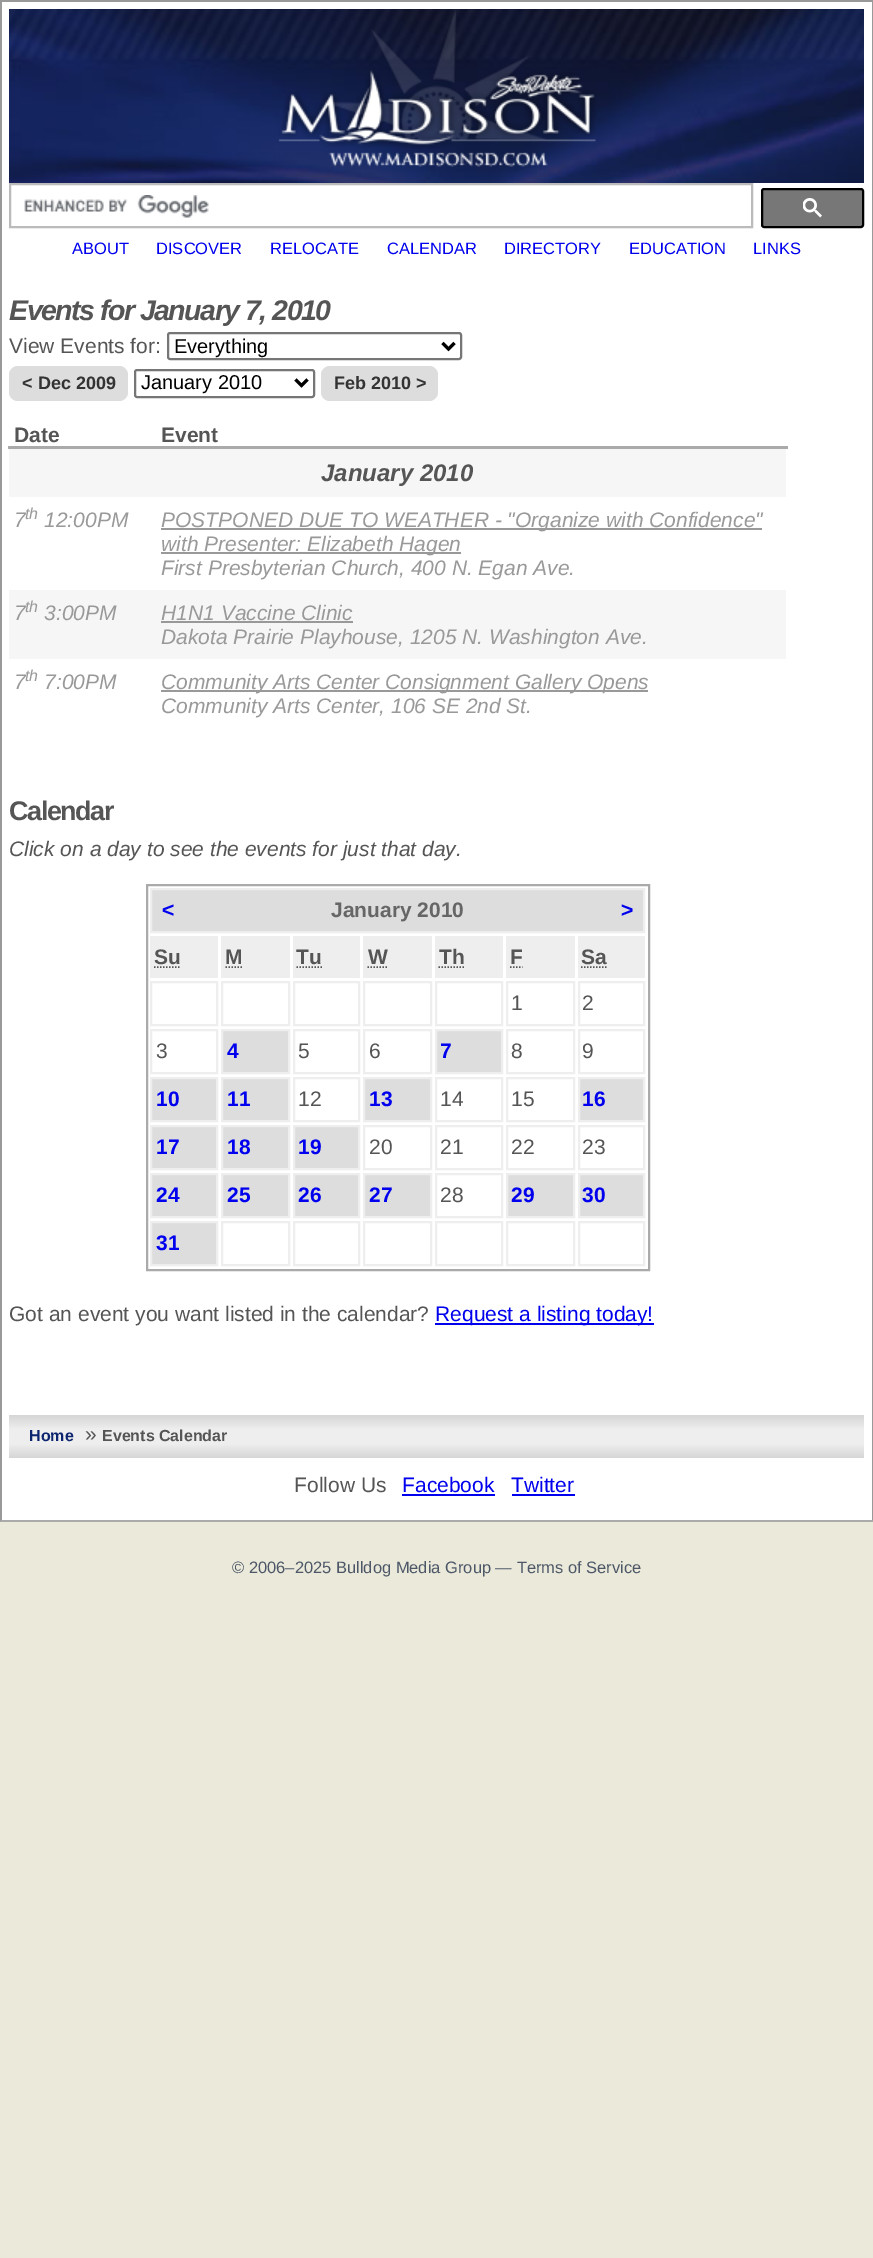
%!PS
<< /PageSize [873 2258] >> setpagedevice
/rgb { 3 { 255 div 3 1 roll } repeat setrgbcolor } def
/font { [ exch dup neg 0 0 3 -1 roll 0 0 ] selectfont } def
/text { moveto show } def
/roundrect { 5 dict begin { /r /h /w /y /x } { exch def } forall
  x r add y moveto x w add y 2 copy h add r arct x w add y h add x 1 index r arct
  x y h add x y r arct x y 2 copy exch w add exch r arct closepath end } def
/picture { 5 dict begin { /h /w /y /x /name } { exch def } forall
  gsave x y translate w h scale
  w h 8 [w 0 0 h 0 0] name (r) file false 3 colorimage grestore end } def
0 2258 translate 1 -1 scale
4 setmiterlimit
235 234 218 rgb
0 0 873 2258 rectfill
255 255 255 rgb
2 2 870 1518 rectfill
153 153 153 rgb
0 0 873 2 rectfill
873 0 moveto 0 1522 rlineto -1 -2 rlineto 0 -1518 rlineto closepath fill
170 170 170 rgb
873 1522 moveto -873 0 rlineto 2 -2 rlineto 870 0 rlineto closepath fill
153 153 153 rgb
0 1522 moveto 0 -1522 rlineto 2 2 rlineto 0 1518 rlineto closepath fill
(img_01.rgb) 9 9 855 174 picture
(img_02.rgb) 278 10 318 157 picture
187 187 187 rgb
2 setlinewidth
10 184 742 43 rectstroke
(img_03.rgb) 24 195 185 23 picture
119 119 119 rgb
762 189 101 38 2 roundrect gsave fill grestore
0 0 0 rgb
stroke
(img_04.rgb) 803 198 19 20 picture
118 118 118 rgb
168 333 293 26 2 roundrect stroke
0 0 0 rgb
3 setlinewidth
442.5 343 moveto 6 6 rlineto 6 -6 rlineto stroke
221 221 221 rgb
9 366 119 35 9 roundrect fill
118 118 118 rgb
2 setlinewidth
135 370 179 27 2 roundrect stroke
0 0 0 rgb
3 setlinewidth
295.5 379.5 moveto 6 6 rlineto 6 -6 rlineto stroke
221 221 221 rgb
321 366 117 35 9 roundrect fill
170 170 170 rgb
8 446 780 3 rectfill
246 246 246 rgb
9 449 777 48 rectfill
153 153 153 rgb
161 528 601 2 rectfill
161 552 300 2 rectfill
246 246 246 rgb
9 590 777 69 rectfill
153 153 153 rgb
161 621 192 2 rectfill
161 690 487 2 rectfill
170 170 170 rgb
2 setlinewidth
147 885 502 385 rectstroke
221 221 221 rgb
151 889 moveto 493 0 rlineto 0 43 rlineto -493 0 rlineto closepath gsave fill grestore
238 238 238 rgb
stroke
150 936 68 42 rectfill
85 85 85 rgb
1.5 setlinewidth
[1.5 1.5] 0 setdash
154 967 moveto 27 0 rlineto stroke
238 238 238 rgb
221 936 69 42 rectfill
85 85 85 rgb
225.5 967 moveto 17.5 0 rlineto stroke
238 238 238 rgb
293 936 67 42 rectfill
85 85 85 rgb
296.5 967 moveto 25.5 0 rlineto stroke
238 238 238 rgb
363 936 69 42 rectfill
85 85 85 rgb
367.5 967 moveto 20 0 rlineto stroke
238 238 238 rgb
435 936 68 42 rectfill
85 85 85 rgb
438.5 967 moveto 26 0 rlineto stroke
238 238 238 rgb
506 936 69 42 rectfill
85 85 85 rgb
510 967 moveto 12.5 0 rlineto stroke
238 238 238 rgb
578 936 67 42 rectfill
85 85 85 rgb
581 967 moveto 25.5 0 rlineto stroke
238 238 238 rgb
2 setlinewidth
[] 0 setdash
151 982 66 43 rectstroke
222 982 67 43 rectstroke
294 982 65 43 rectstroke
364 982 67 43 rectstroke
436 982 66 43 rectstroke
507 982 67 43 rectstroke
579 982 65 43 rectstroke
151 1030 66 43 rectstroke
221 221 221 rgb
222 1030 moveto 67 0 rlineto 0 43 rlineto -67 0 rlineto closepath gsave fill grestore
238 238 238 rgb
stroke
294 1030 65 43 rectstroke
364 1030 67 43 rectstroke
221 221 221 rgb
436 1030 moveto 66 0 rlineto 0 43 rlineto -66 0 rlineto closepath gsave fill grestore
238 238 238 rgb
stroke
507 1030 67 43 rectstroke
579 1030 65 43 rectstroke
221 221 221 rgb
151 1078 moveto 66 0 rlineto 0 43 rlineto -66 0 rlineto closepath gsave fill grestore
238 238 238 rgb
stroke
221 221 221 rgb
222 1078 moveto 67 0 rlineto 0 43 rlineto -67 0 rlineto closepath gsave fill grestore
238 238 238 rgb
stroke
294 1078 65 43 rectstroke
221 221 221 rgb
364 1078 moveto 67 0 rlineto 0 43 rlineto -67 0 rlineto closepath gsave fill grestore
238 238 238 rgb
stroke
436 1078 66 43 rectstroke
507 1078 67 43 rectstroke
221 221 221 rgb
579 1078 moveto 65 0 rlineto 0 43 rlineto -65 0 rlineto closepath gsave fill grestore
238 238 238 rgb
stroke
221 221 221 rgb
151 1126 moveto 66 0 rlineto 0 43 rlineto -66 0 rlineto closepath gsave fill grestore
238 238 238 rgb
stroke
221 221 221 rgb
222 1126 moveto 67 0 rlineto 0 43 rlineto -67 0 rlineto closepath gsave fill grestore
238 238 238 rgb
stroke
221 221 221 rgb
294 1126 moveto 65 0 rlineto 0 43 rlineto -65 0 rlineto closepath gsave fill grestore
238 238 238 rgb
stroke
364 1126 67 43 rectstroke
436 1126 66 43 rectstroke
507 1126 67 43 rectstroke
579 1126 65 43 rectstroke
221 221 221 rgb
151 1174 moveto 66 0 rlineto 0 43 rlineto -66 0 rlineto closepath gsave fill grestore
238 238 238 rgb
stroke
221 221 221 rgb
222 1174 moveto 67 0 rlineto 0 43 rlineto -67 0 rlineto closepath gsave fill grestore
238 238 238 rgb
stroke
221 221 221 rgb
294 1174 moveto 65 0 rlineto 0 43 rlineto -65 0 rlineto closepath gsave fill grestore
238 238 238 rgb
stroke
221 221 221 rgb
364 1174 moveto 67 0 rlineto 0 43 rlineto -67 0 rlineto closepath gsave fill grestore
238 238 238 rgb
stroke
436 1174 66 43 rectstroke
221 221 221 rgb
507 1174 moveto 67 0 rlineto 0 43 rlineto -67 0 rlineto closepath gsave fill grestore
238 238 238 rgb
stroke
221 221 221 rgb
579 1174 moveto 65 0 rlineto 0 43 rlineto -65 0 rlineto closepath gsave fill grestore
238 238 238 rgb
stroke
221 221 221 rgb
151 1222 moveto 66 0 rlineto 0 43 rlineto -66 0 rlineto closepath gsave fill grestore
238 238 238 rgb
stroke
222 1222 67 43 rectstroke
294 1222 65 43 rectstroke
364 1222 67 43 rectstroke
436 1222 66 43 rectstroke
507 1222 67 43 rectstroke
579 1222 65 43 rectstroke
0 0 238 rgb
435 1323 219 2 rectfill
gsave 9 1415 moveto 855 0 rlineto 0 43 rlineto -855 0 rlineto closepath clip newpath
<< /ShadingType 2 /ColorSpace /DeviceRGB /Coords [437 1415 437 1458] /Extend [true true] /Function << /FunctionType 3 /Domain [0 1] /Functions [<< /FunctionType 2 /Domain [0 1] /C0 [0.839 0.839 0.839] /C1 [0.933 0.933 0.933] /N 1 >> << /FunctionType 2 /Domain [0 1] /C0 [0.933 0.933 0.933] /C1 [0.933 0.933 0.933] /N 1 >> << /FunctionType 2 /Domain [0 1] /C0 [0.933 0.933 0.933] /C1 [0.839 0.839 0.839] /N 1 >>] /Bounds [0.33 0.67] /Encode [0 1 0 1 0 1] >> >> shfill grestore
402 1494 93 2 rectfill
512 1494 63 2 rectfill
/LiberationSans-Regular 16.5 font
(ABOUT) 72 254 text
(DISCOVER) 156 254 text
(RELOCATE) 270 254 text
(CALENDAR) 387 254 text
(DIRECTORY) 504 254 text
(EDUCATION) 629 254 text
(LINKS) 753 254 text
/LiberationSans-BoldItalic 28.5 font
85 85 85 rgb
9 320 moveto -1.5 0 (Events for January 7, 2010) ashow
/LiberationSans-Regular 21 font
(View Events for:) 9 353 text
/LiberationSans-Regular 20 font
0 0 0 rgb
(Everything) 174 353 text
/LiberationSans-Bold 18 font
51 51 51 rgb
(< Dec 2009) 22 389 text
/LiberationSans-Regular 20 font
0 0 0 rgb
(January 2010) 141 389 text
/LiberationSans-Bold 18 font
51 51 51 rgb
(Feb 2010 >) 334 389 text
/LiberationSans-Bold 21 font
85 85 85 rgb
(Date) 14 442 text
(Event) 161 442 text
/LiberationSans-BoldItalic 24 font
(January 2010) 321 481 text
/LiberationSans-Italic 21 font
153 153 153 rgb
(7) 14 527 text
/LiberationSans-Italic 16 font
(th) 25 519 text
/LiberationSans-Italic 21 font
(12:00PM) 44 527 text
(POSTPONED DUE TO WEATHER - "Organize with Confidence") 161 527 text
(with Presenter: Elizabeth Hagen) 161 551 text
(First Presbyterian Church, 400 N. Egan Ave.) 161 575 text
(7) 14 620 text
/LiberationSans-Italic 16 font
(th) 25 612 text
/LiberationSans-Italic 21 font
(3:00PM) 44 620 text
(H1N1 Vaccine Clinic) 161 620 text
(Dakota Prairie Playhouse, 1205 N. Washington Ave.) 161 644 text
(7) 14 689 text
/LiberationSans-Italic 16 font
(th) 25 681 text
/LiberationSans-Italic 21 font
(7:00PM) 44 689 text
(Community Arts Center Consignment Gallery Opens) 161 689 text
(Community Arts Center, 106 SE 2nd St.) 161 713 text
/LiberationSans-Bold 27 font
85 85 85 rgb
9 820 moveto -1.5 0 (Calendar) ashow
/LiberationSans-Italic 21 font
(Click on a day to see the events for just that day.) 9 856 text
/LiberationSans-Bold 21 font
0 0 238 rgb
(<) 162 917 text
102 102 102 rgb
(January 2010) 331 917 text
0 0 238 rgb
(>) 621 917 text
85 85 85 rgb
(Su) 154 964 text
(M) 225 964 text
(Tu) 296 964 text
(W) 368 964 text
(Th) 439 964 text
(F) 510 964 text
(Sa) 581 964 text
/LiberationSans-Regular 21 font
(1) 511 1010 text
(2) 582 1010 text
(3) 156 1058 text
/LiberationSans-Bold 21 font
0 0 238 rgb
(4) 227 1058 text
/LiberationSans-Regular 21 font
85 85 85 rgb
(5) 298 1058 text
(6) 369 1058 text
/LiberationSans-Bold 21 font
0 0 238 rgb
(7) 440 1058 text
/LiberationSans-Regular 21 font
85 85 85 rgb
(8) 511 1058 text
(9) 582 1058 text
/LiberationSans-Bold 21 font
0 0 238 rgb
(10) 156 1106 text
(11) 227 1106 text
/LiberationSans-Regular 21 font
85 85 85 rgb
(12) 298 1106 text
/LiberationSans-Bold 21 font
0 0 238 rgb
(13) 369 1106 text
/LiberationSans-Regular 21 font
85 85 85 rgb
(14) 440 1106 text
(15) 511 1106 text
/LiberationSans-Bold 21 font
0 0 238 rgb
(16) 582 1106 text
(17) 156 1154 text
(18) 227 1154 text
(19) 298 1154 text
/LiberationSans-Regular 21 font
85 85 85 rgb
(20) 369 1154 text
(21) 440 1154 text
(22) 511 1154 text
(23) 582 1154 text
/LiberationSans-Bold 21 font
0 0 238 rgb
(24) 156 1202 text
(25) 227 1202 text
(26) 298 1202 text
(27) 369 1202 text
/LiberationSans-Regular 21 font
85 85 85 rgb
(28) 440 1202 text
/LiberationSans-Bold 21 font
0 0 238 rgb
(29) 511 1202 text
(30) 582 1202 text
(31) 156 1250 text
/LiberationSans-Regular 21 font
85 85 85 rgb
(Got an event you want listed in the calendar?) 9 1321 text
0 0 238 rgb
(Request a listing today!) 435 1321 text
/LiberationSans-Bold 16 font
13 37 111 rgb
(Home) 29 1441 text
/LiberationSans-Regular 21 font
85 85 85 rgb
(») 85 1441 text
/LiberationSans-Bold 16 font
(Events Calendar) 102 1441 text
/LiberationSans-Regular 21 font
(Follow Us) 294 1492 text
0 0 238 rgb
(Facebook) 402 1492 text
(Twitter) 511 1492 text
/LiberationSans-Regular 16.5 font
77 87 104 rgb
(© 2006–2025 Bulldog Media Group — Terms of Service) 232 1573 text
showpage
